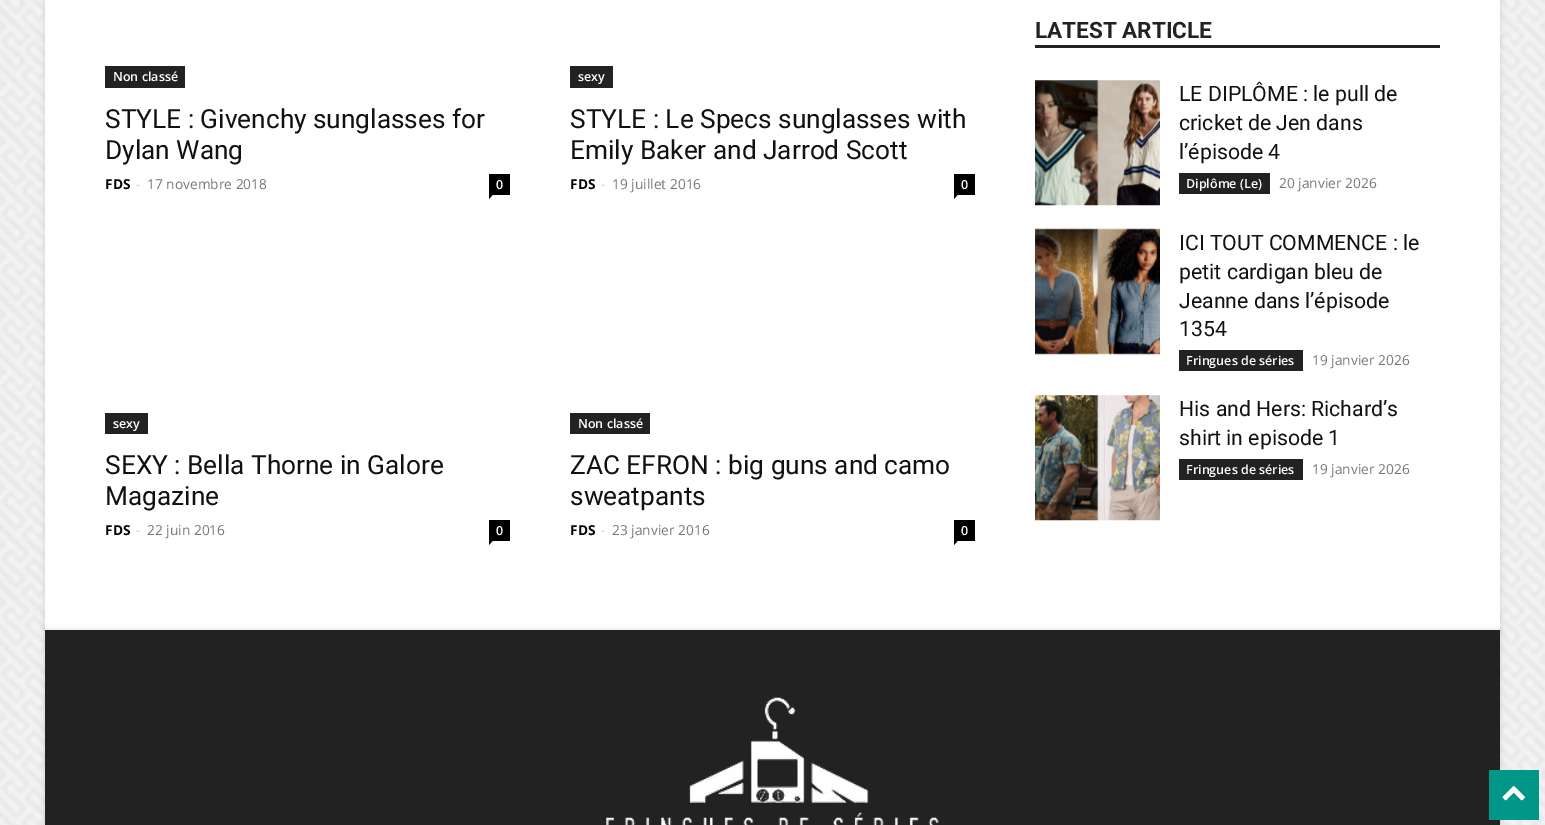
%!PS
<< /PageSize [1545 825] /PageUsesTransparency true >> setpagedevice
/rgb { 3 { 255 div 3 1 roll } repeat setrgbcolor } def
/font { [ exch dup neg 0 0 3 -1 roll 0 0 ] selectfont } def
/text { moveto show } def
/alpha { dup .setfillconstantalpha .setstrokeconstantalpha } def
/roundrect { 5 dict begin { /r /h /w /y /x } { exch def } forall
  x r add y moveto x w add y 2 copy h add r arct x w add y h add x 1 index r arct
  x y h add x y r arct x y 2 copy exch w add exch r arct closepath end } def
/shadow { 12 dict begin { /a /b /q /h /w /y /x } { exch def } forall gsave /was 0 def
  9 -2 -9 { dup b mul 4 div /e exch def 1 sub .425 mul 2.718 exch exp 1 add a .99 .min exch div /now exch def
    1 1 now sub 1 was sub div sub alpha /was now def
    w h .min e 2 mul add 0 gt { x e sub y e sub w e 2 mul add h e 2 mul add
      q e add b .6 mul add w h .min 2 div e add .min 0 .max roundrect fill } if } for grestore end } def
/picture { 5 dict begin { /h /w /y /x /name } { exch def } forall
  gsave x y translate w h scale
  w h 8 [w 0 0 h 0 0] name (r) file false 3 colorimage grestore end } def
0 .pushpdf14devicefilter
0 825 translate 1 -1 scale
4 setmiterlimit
255 255 255 rgb
0 0 1545 825 rectfill
(img_01.rgb) 0 0 1545 825 picture
0 0 0 rgb
45 -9 1455 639 0 3 0.12 shadow
255 255 255 rgb
45 0 1455 630 rectfill
34 34 34 rgb
105 66 80 22 rectfill
0 0 0 rgb
489 174 21 21 rectfill
489 195 moveto 3.5 0 rlineto -3.5 4 rlineto closepath fill
34 34 34 rgb
570 66 43 22 rectfill
0 0 0 rgb
954 174 21 21 rectfill
954 195 moveto 3.5 0 rlineto -3.5 4 rlineto closepath fill
34 34 34 rgb
105 413 43 21 rectfill
0 0 0 rgb
489 520 21 21 rectfill
489 541 moveto 3.5 0 rlineto -3.5 4 rlineto closepath fill
34 34 34 rgb
570 413 80 21 rectfill
0 0 0 rgb
954 520 21 21 rectfill
954 541 moveto 3.5 0 rlineto -3.5 4 rlineto closepath fill
34 34 34 rgb
1035 45 405 3 rectfill
(img_02.rgb) 1035 80 125 126 picture
1179 173 91 21 rectfill
(img_03.rgb) 1035 228 125 127 picture
1179 350 124 21 rectfill
(img_04.rgb) 1035 395 125 126 picture
1179 459 124 21 rectfill
0 0 0 rgb
45 630 1455 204 0 3 0.12 shadow
34 34 34 rgb
45 630 1455 195 rectfill
(img_05.rgb) 606 697 333 128 picture
0 150 136 rgb
1489 770 50 50 rectfill
(img_06.rgb) 1502 786 23 15 picture
/OpenSans-SemiBold 12.5 font
255 255 255 rgb
(Non classé) 113 81 text
/Roboto-Regular 26.25 font
17 17 17 rgb
(STYLE : Givenchy sunglasses for) 105 128 text
(Dylan Wang) 105 159 text
/OpenSans-Bold 13.75 font
0 0 0 rgb
(FDS) 105 189 text
/OpenSans-Regular 13.75 font
204 204 204 rgb
(-) 136 189 text
118 118 118 rgb
(17 novembre 2018) 147 189 text
/OpenSans-SemiBold 12.5 font
255 255 255 rgb
(0) 496 189 text
(sexy) 578 81 text
/Roboto-Regular 26.25 font
17 17 17 rgb
(STYLE : Le Specs sunglasses with) 570 128 text
(Emily Baker and Jarrod Scott) 570 159 text
/OpenSans-Bold 13.75 font
0 0 0 rgb
(FDS) 570 189 text
/OpenSans-Regular 13.75 font
204 204 204 rgb
(-) 601 189 text
118 118 118 rgb
(19 juillet 2016) 612 189 text
/OpenSans-SemiBold 12.5 font
255 255 255 rgb
(0) 961 189 text
(sexy) 113 428 text
/Roboto-Regular 26.25 font
17 17 17 rgb
(SEXY : Bella Thorne in Galore) 105 474 text
(Magazine) 105 505 text
/OpenSans-Bold 13.75 font
0 0 0 rgb
(FDS) 105 535 text
/OpenSans-Regular 13.75 font
204 204 204 rgb
(-) 136 535 text
118 118 118 rgb
(22 juin 2016) 147 535 text
/OpenSans-SemiBold 12.5 font
255 255 255 rgb
(0) 496 535 text
(Non classé) 578 428 text
/Roboto-Regular 26.25 font
17 17 17 rgb
(ZAC EFRON : big guns and camo) 570 474 text
(sweatpants) 570 505 text
/OpenSans-Bold 13.75 font
0 0 0 rgb
(FDS) 570 535 text
/OpenSans-Regular 13.75 font
204 204 204 rgb
(-) 601 535 text
118 118 118 rgb
(23 janvier 2016) 612 535 text
/OpenSans-SemiBold 12.5 font
255 255 255 rgb
(0) 961 535 text
/Roboto-Bold 22.5 font
34 34 34 rgb
(LATEST ARTICLE) 1035 38 text
/Roboto-Regular 21.25 font
17 17 17 rgb
(LE DIPLÔME : le pull de) 1179 101 text
(cricket de Jen dans) 1179 130 text
(l’épisode 4) 1179 159 text
/OpenSans-SemiBold 12.5 font
255 255 255 rgb
(Diplôme \(Le\)) 1186 188 text
/OpenSans-Regular 13.75 font
118 118 118 rgb
(20 janvier 2026) 1279 188 text
/Roboto-Regular 21.25 font
17 17 17 rgb
(ICI TOUT COMMENCE : le) 1179 250 text
(petit cardigan bleu de) 1179 279 text
(Jeanne dans l’épisode) 1179 308 text
(1354) 1179 336 text
/OpenSans-SemiBold 12.5 font
255 255 255 rgb
(Fringues de séries) 1186 365 text
/OpenSans-Regular 13.75 font
118 118 118 rgb
(19 janvier 2026) 1312 365 text
/Roboto-Regular 21.25 font
17 17 17 rgb
(His and Hers: Richard’s) 1179 416 text
(shirt in episode 1) 1179 445 text
/OpenSans-SemiBold 12.5 font
255 255 255 rgb
(Fringues de séries) 1186 474 text
/OpenSans-Regular 13.75 font
118 118 118 rgb
(19 janvier 2026) 1312 474 text
.poppdf14devicefilter showpage
